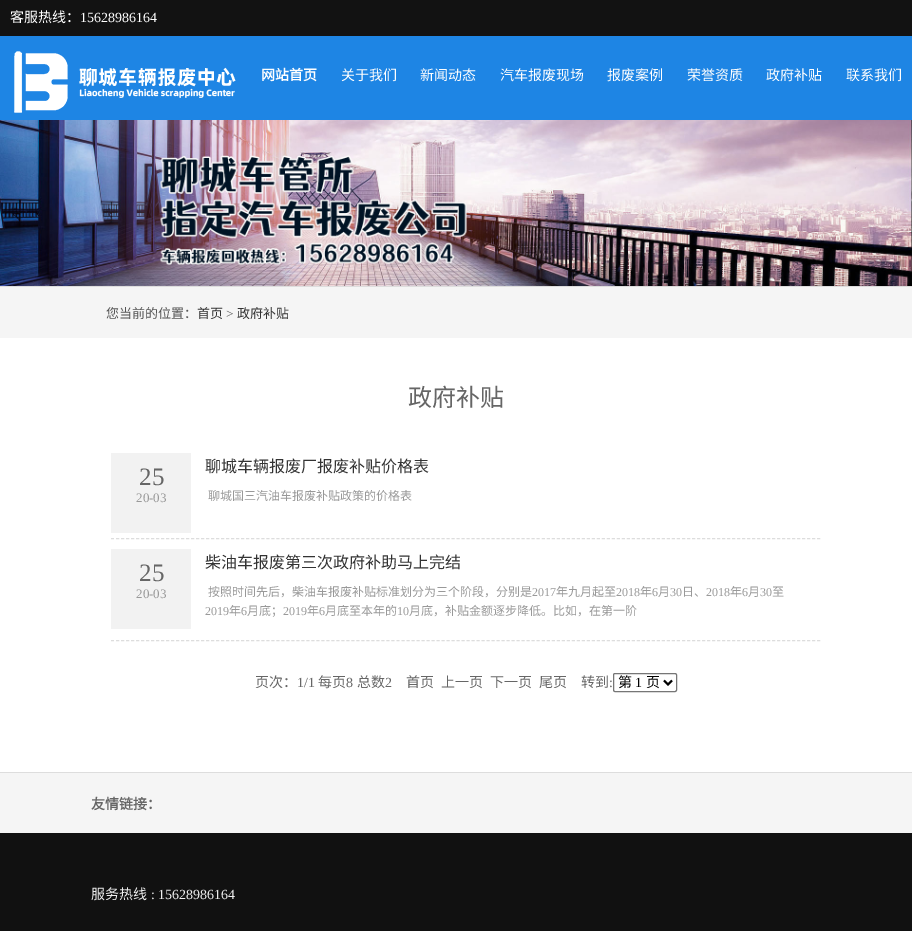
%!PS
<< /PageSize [912 931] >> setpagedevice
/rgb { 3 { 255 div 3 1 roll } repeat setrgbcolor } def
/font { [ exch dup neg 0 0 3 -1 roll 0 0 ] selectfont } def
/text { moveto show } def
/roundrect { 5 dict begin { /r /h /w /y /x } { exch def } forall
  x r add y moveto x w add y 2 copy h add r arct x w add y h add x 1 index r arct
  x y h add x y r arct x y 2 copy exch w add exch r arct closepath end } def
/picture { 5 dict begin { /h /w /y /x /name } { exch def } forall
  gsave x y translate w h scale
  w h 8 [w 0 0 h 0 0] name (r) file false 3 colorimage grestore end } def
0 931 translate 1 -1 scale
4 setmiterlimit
255 255 255 rgb
0 0 912 931 rectfill
18 18 18 rgb
0 0 912 36 rectfill
30 133 228 rgb
0 36 912 84 rectfill
(img_01.rgb) 14 51 222 62 picture
(img_02.rgb) 0 120 912 166 picture
245 245 245 rgb
0 287 912 51 rectfill
221 221 221 rgb
0 286 912 1 rectfill
[3 2.01] 0 setdash
111 538.5 moveto 710 0 rlineto stroke
242 242 242 rgb
111 453 80 80 rectfill
221 221 221 rgb
111 640.5 moveto 710 0 rlineto stroke
242 242 242 rgb
111 549 80 80 rectfill
118 118 118 rgb
[] 0 setdash
613.5 673.5 63 18 1.5 roundrect stroke
0 0 0 rgb
2 setlinewidth
664 680.5 moveto 4 4 rlineto 4 -4 rlineto stroke
245 245 245 rgb
0 773 912 60 rectfill
221 221 221 rgb
0 772 912 1 rectfill
17 17 17 rgb
0 833 912 98 rectfill
/NotoSansCJKSC-Regular 14 font
255 255 255 rgb
(客服热线：) 10 22 text
/LiberationSerif-Regular 14 font
(15628986164) 80 22 text
/NotoSansCJKSC-Bold 14 font
(网站首页) 261 80 text
/NotoSansCJKSC-Regular 14 font
(关于我们) 341 80 text
(新闻动态) 420 80 text
(汽车报废现场) 500 80 text
(报废案例) 607 80 text
(荣誉资质) 687 80 text
(政府补贴) 766 80 text
(联系我们) 846 80 text
/NotoSansCJKSC-Regular 13 font
85 85 85 rgb
(您当前的位置：) 106 318 text
51 51 51 rgb
(首页) 197 318 text
/LiberationSerif-Regular 13 font
85 85 85 rgb
(>) 226 318 text
/NotoSansCJKSC-Regular 13 font
51 51 51 rgb
(政府补贴) 237 318 text
/NotoSansCJKSC-Regular 24 font
102 102 102 rgb
(政府补贴) 408 406 text
/LiberationSerif-Regular 25 font
(25) 139 485 text
/LiberationSerif-Regular 13 font
153 153 153 rgb
(20-03) 136 502 text
/NotoSansCJKSC-Regular 16 font
51 51 51 rgb
(聊城车辆报废厂报废补贴价格表) 205 472 text
/NotoSansCJKSC-Regular 12 font
153 153 153 rgb
(聊城国三汽油车报废补贴政策的价格表) 208 500 text
/LiberationSerif-Regular 25 font
102 102 102 rgb
(25) 139 581 text
/LiberationSerif-Regular 13 font
153 153 153 rgb
(20-03) 136 598 text
/NotoSansCJKSC-Regular 16 font
51 51 51 rgb
(柴油车报废第三次政府补助马上完结) 205 568 text
/NotoSansCJKSC-Regular 12 font
153 153 153 rgb
(按照时间先后，柴油车报废补贴标准划分为三个阶段，分别是) 208 596 text
/LiberationSerif-Regular 12 font
(2017) 532 596 text
/NotoSansCJKSC-Regular 12 font
(年九月起至) 556 596 text
/LiberationSerif-Regular 12 font
(2018) 616 596 text
/NotoSansCJKSC-Regular 12 font
(年) 640 596 text
/LiberationSerif-Regular 12 font
(6) 652 596 text
/NotoSansCJKSC-Regular 12 font
(月) 658 596 text
/LiberationSerif-Regular 12 font
(30) 670 596 text
/NotoSansCJKSC-Regular 12 font
(日、) 682 596 text
/LiberationSerif-Regular 12 font
(2018) 706 596 text
/NotoSansCJKSC-Regular 12 font
(年) 730 596 text
/LiberationSerif-Regular 12 font
(6) 742 596 text
/NotoSansCJKSC-Regular 12 font
(月) 748 596 text
/LiberationSerif-Regular 12 font
(30) 760 596 text
/NotoSansCJKSC-Regular 12 font
(至) 772 596 text
/LiberationSerif-Regular 12 font
(2019) 205 615 text
/NotoSansCJKSC-Regular 12 font
(年) 229 615 text
/LiberationSerif-Regular 12 font
(6) 241 615 text
/NotoSansCJKSC-Regular 12 font
(月底；) 247 615 text
/LiberationSerif-Regular 12 font
(2019) 283 615 text
/NotoSansCJKSC-Regular 12 font
(年) 307 615 text
/LiberationSerif-Regular 12 font
(6) 319 615 text
/NotoSansCJKSC-Regular 12 font
(月底至本年的) 325 615 text
/LiberationSerif-Regular 12 font
(10) 397 615 text
/NotoSansCJKSC-Regular 12 font
(月底，补贴金额逐步降低。比如，在第一阶) 409 615 text
/NotoSansCJKSC-Regular 14 font
102 102 102 rgb
(页次：) 255 687 text
/LiberationSerif-Regular 14 font
(1/1) 297 687 text
/NotoSansCJKSC-Regular 14 font
(每页) 318 687 text
/LiberationSerif-Regular 14 font
(8) 346 687 text
/NotoSansCJKSC-Regular 14 font
(总数) 357 687 text
/LiberationSerif-Regular 14 font
(2) 385 687 text
/NotoSansCJKSC-Regular 14 font
(首页) 406 687 text
(上一页) 441 687 text
(下一页) 490 687 text
(尾页) 539 687 text
(转到) 581 687 text
/LiberationSerif-Regular 14 font
(:) 609 687 text
/NotoSansCJKSC-Regular 14 font
0 0 0 rgb
(第) 618 687 text
/LiberationSerif-Regular 14 font
(1) 635 687 text
/NotoSansCJKSC-Regular 14 font
(页) 646 687 text
/NotoSansCJKSC-Bold 14 font
102 102 102 rgb
(友情链接：) 91 809 text
/NotoSansCJKSC-Regular 14 font
238 238 238 rgb
(服务热线) 91 899 text
/LiberationSerif-Regular 14 font
(: 15628986164) 151 899 text
showpage
